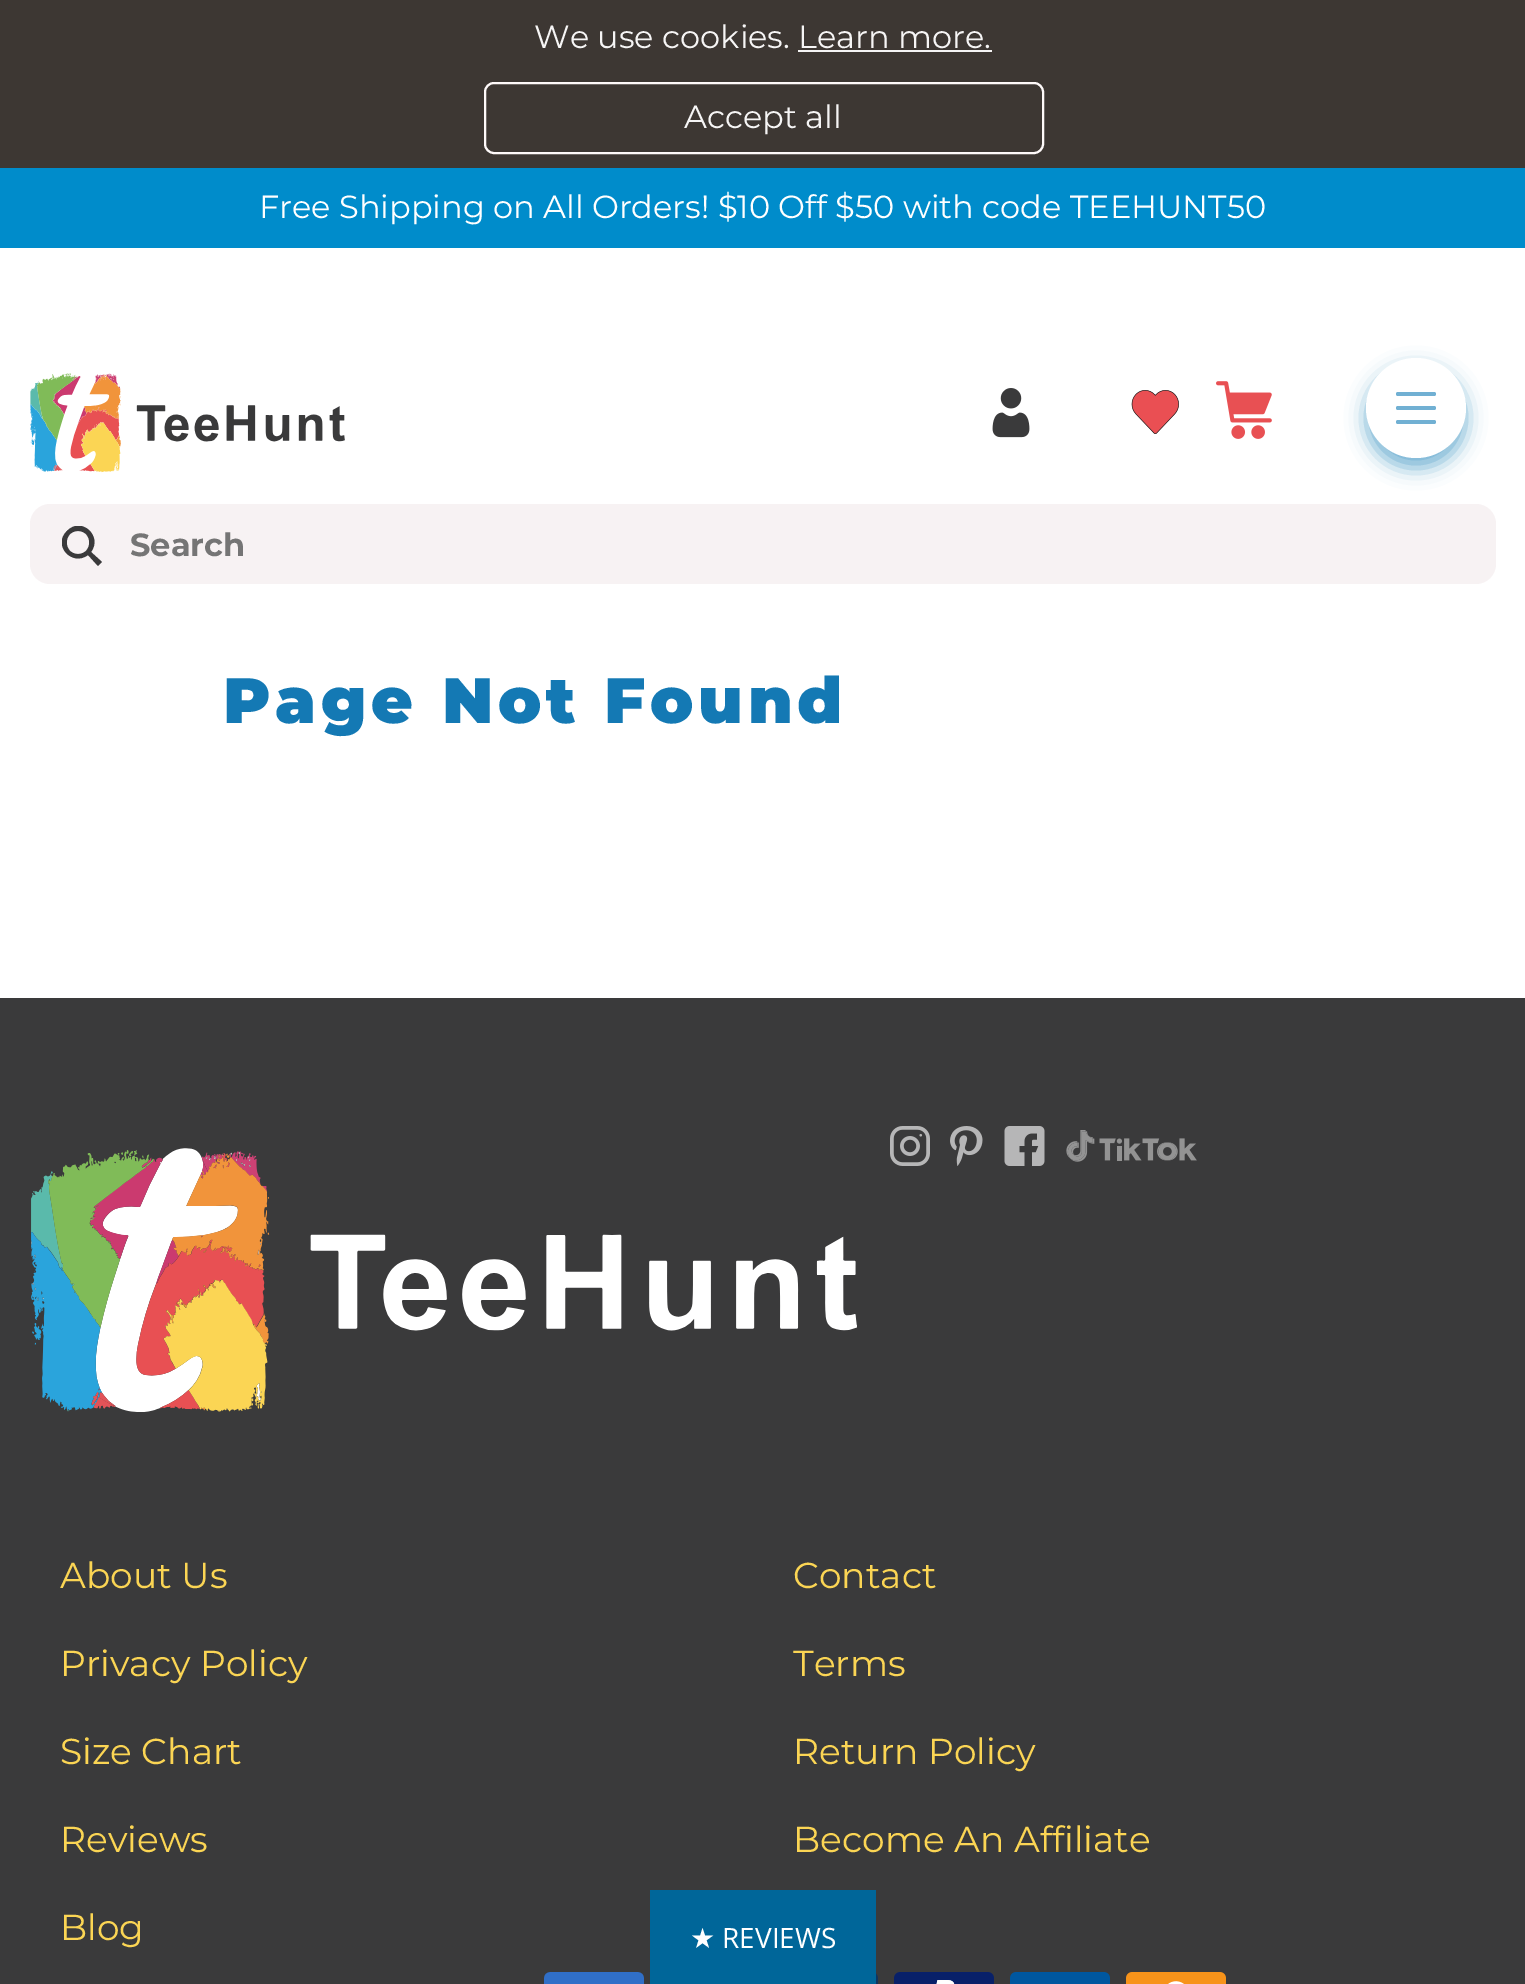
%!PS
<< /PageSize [1525 1984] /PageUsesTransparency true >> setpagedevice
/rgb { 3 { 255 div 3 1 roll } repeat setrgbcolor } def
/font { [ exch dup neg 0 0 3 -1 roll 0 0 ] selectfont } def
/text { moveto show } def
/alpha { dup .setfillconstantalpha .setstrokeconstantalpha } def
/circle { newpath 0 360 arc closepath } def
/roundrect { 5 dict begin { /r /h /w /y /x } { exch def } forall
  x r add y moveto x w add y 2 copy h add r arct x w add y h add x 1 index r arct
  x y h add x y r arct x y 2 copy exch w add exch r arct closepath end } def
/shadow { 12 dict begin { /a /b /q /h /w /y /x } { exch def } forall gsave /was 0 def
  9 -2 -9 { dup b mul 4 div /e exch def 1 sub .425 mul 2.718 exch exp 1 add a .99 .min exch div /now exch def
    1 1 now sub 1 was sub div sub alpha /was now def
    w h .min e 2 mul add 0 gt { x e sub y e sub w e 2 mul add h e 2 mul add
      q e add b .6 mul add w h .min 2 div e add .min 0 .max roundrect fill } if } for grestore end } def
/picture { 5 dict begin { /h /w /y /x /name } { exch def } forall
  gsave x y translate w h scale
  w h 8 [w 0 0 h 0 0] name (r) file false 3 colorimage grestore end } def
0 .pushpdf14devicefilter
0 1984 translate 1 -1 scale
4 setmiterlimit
255 255 255 rgb
0 0 1525 1984 rectfill
61 55 51 rgb
0 0 1525 168 rectfill
246 245 245 rgb
798 50 194 2 rectfill
255 250 250 rgb
2 setlinewidth
485 83 558 70 9 roundrect stroke
0 140 203 rgb
0 168 1525 80 rectfill
(img_01.rgb) 30 373 315 100 picture
(img_02.rgb) 992 388 38 50 picture
(img_03.rgb) 1131 390 48 44 picture
(img_04.rgb) 1216 381 56 58 picture
113 176 211 rgb
1366 368 100 100 50 10 1 shadow
255 255 255 rgb
1416 408 50 circle fill
113 176 211 rgb
1396 392 40 4 2 roundrect fill
1396 406 40 4 2 roundrect fill
1396 420 40 4 2 roundrect fill
247 242 243 rgb
30 504 1466 80 20 roundrect fill
gsave
62 526 40 40 rectclip
58 58 59 rgb
91 552 moveto 12 -16 -10 -36 -24 -21 rcurveto -15 14 5 36 21 24 rcurveto 10 11 rlineto 4 -4 rlineto closepath 78 554 moveto -15 0 -15 -23 0 -23 rcurveto 15 0 15 23 0 23 rcurveto closepath fill
grestore
58 58 59 rgb
0 998 1525 986 rectfill
(img_05.rgb) 31 1148 826 264 picture
(img_06.rgb) 890 1126 40 40 picture
(img_07.rgb) 950 1126 33 40 picture
(img_08.rgb) 1004 1126 41 40 picture
(img_09.rgb) 1066 1130 131 32 picture
(img_10.rgb) 544 1972 100 12 picture
(img_11.rgb) 876 1973 2 11 picture
(img_12.rgb) 894 1972 100 12 picture
(img_13.rgb) 1010 1972 100 12 picture
(img_14.rgb) 1126 1972 100 12 picture
0 102 153 rgb
650 1890 226 94 rectfill
/Montserrat-Regular 32 font
246 245 245 rgb
(We use cookies. Learn more.) 534 48 text
(Accept all) 684 128 text
255 255 255 rgb
(Free Shipping on All Orders! $10 Off $50 with code TEEHUNT50) 259 218 text
/Montserrat-Bold 32 font
117 117 117 rgb
(Search) 130 556 text
/Montserrat-Black 64 font
20 121 180 rgb
223 723 moveto 4.75 0 (Page Not Found) ashow
/Montserrat-Regular 36 font
251 213 84 rgb
(About Us) 60 1588 text
(Contact) 793 1588 text
(Privacy Policy) 60 1676 text
(Terms) 793 1676 text
(Size Chart) 60 1764 text
(Return Policy) 793 1764 text
(Reviews) 60 1852 text
(Become An Affiliate) 793 1852 text
(Blog) 60 1940 text
/DejaVuSans-Regular 28 font
255 255 255 rgb
(★) 690 1948 text
/OpenSans-Regular 28 font
(REVIEWS) 722 1948 text
.poppdf14devicefilter showpage
